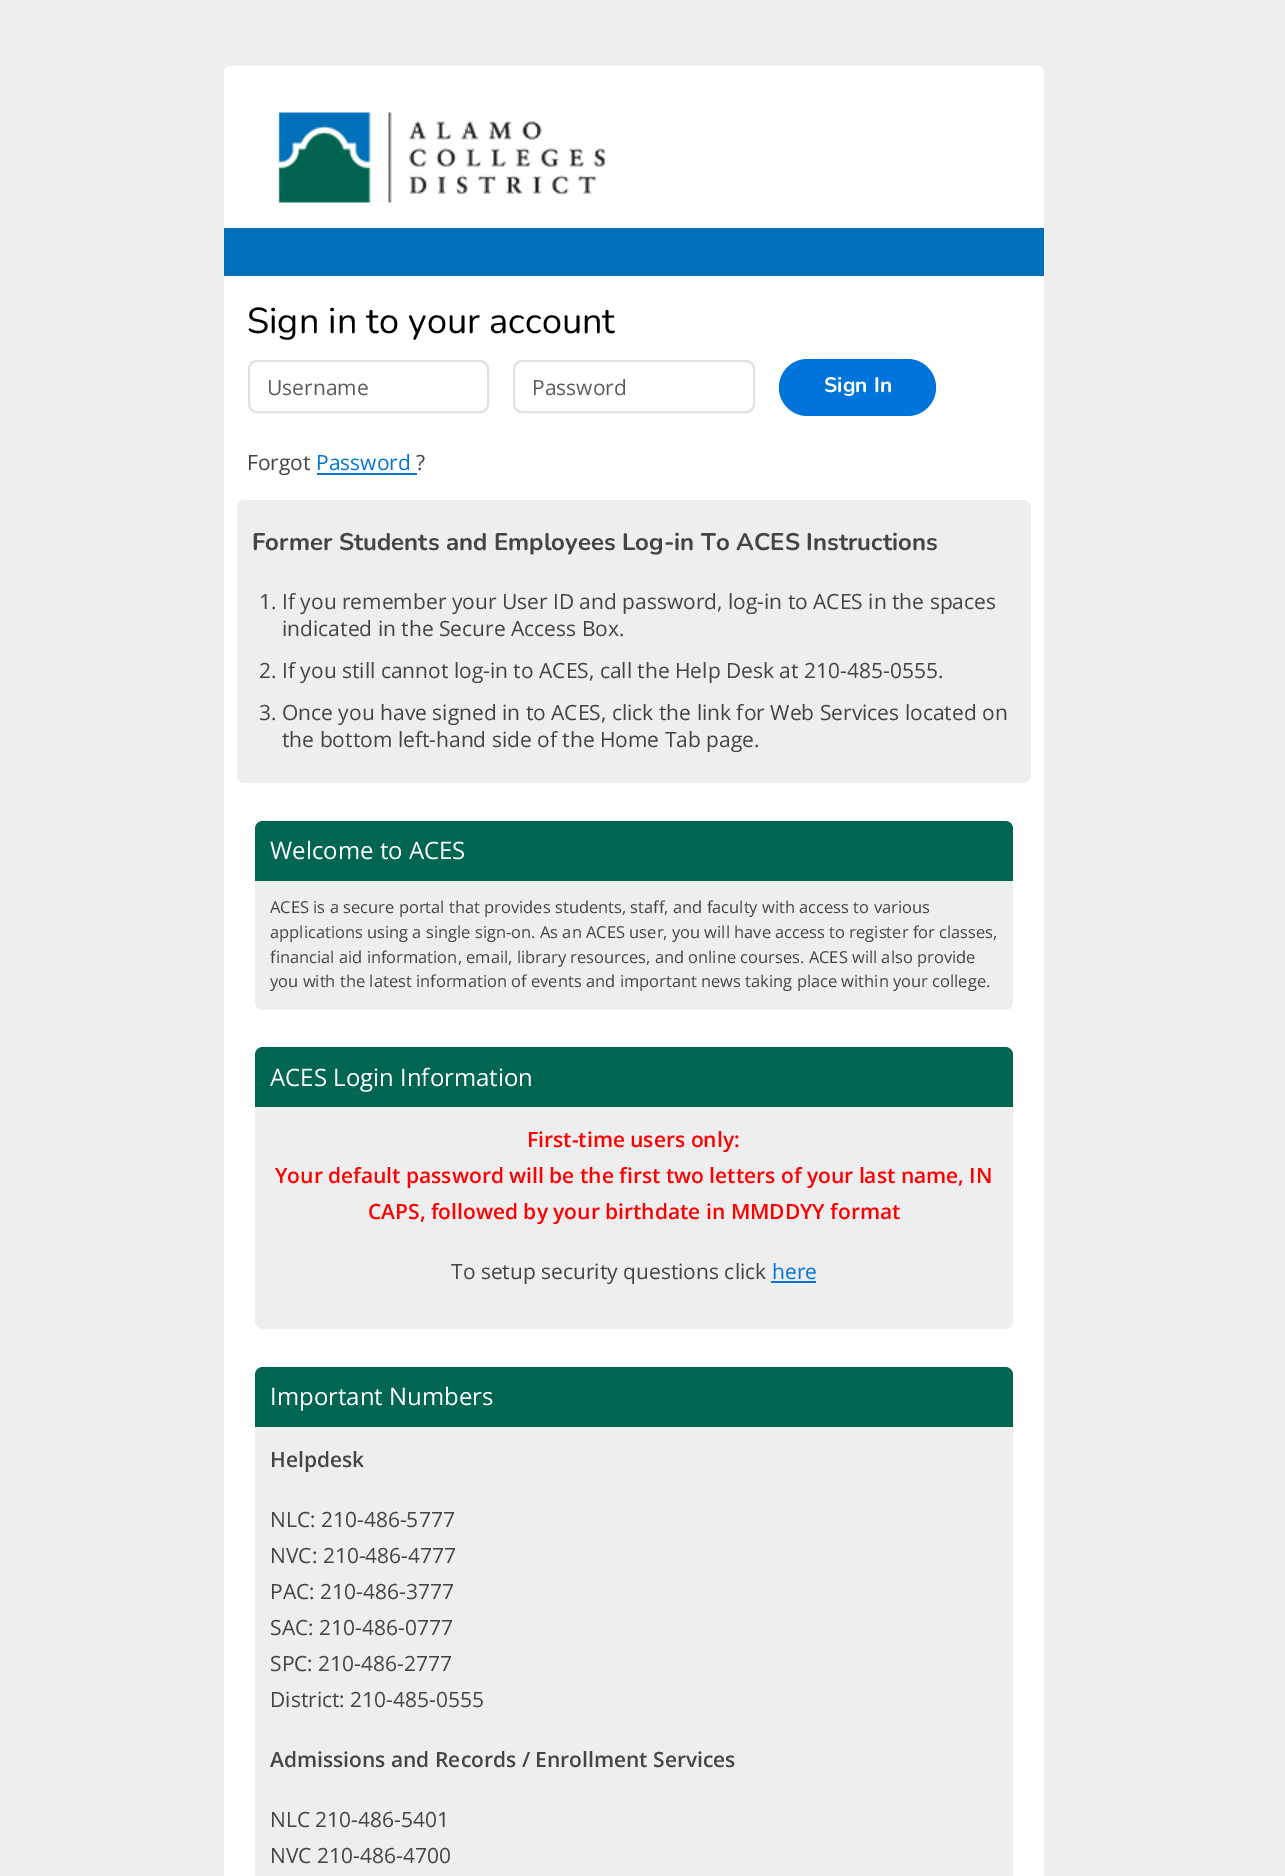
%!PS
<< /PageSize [1285 1876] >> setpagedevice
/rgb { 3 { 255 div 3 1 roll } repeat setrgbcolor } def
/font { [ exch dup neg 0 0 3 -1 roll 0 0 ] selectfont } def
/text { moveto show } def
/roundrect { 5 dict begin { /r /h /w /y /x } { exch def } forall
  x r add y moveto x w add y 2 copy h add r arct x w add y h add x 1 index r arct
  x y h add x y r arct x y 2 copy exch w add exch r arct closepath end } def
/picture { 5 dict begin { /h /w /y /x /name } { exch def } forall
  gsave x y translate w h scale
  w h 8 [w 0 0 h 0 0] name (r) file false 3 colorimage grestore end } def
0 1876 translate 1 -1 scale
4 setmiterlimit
238 238 238 rgb
0 0 1285 1876 rectfill
255 255 255 rgb
224 66 820 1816 6 roundrect fill
(img_01.rgb) 278 112 327 91 picture
1 113 187 rgb
224 228 820 48 rectfill
222 226 230 rgb
2 setlinewidth
249 361 239 51 8 roundrect stroke
514 361 240 51 8 roundrect stroke
0 116 219 rgb
779 359 157 57 28.5 roundrect fill
317 473 100 2 rectfill
238 238 238 rgb
237 500 794 283 8 roundrect fill
0 102 82 rgb
263 821 moveto 742 0 rlineto 4.5 0 8 3.5 8 8 rcurveto 0 52 rlineto -758 0 rlineto 0 -52 rlineto 0 -4.5 3.5 -8 8 -8 rcurveto closepath fill
238 238 238 rgb
255 881 moveto 758 0 rlineto 0 121 rlineto 0 4.5 -3.5 8 -8 8 rcurveto -742 0 rlineto -4.5 0 -8 -3.5 -8 -8 rcurveto closepath fill
0 102 82 rgb
263 1047 moveto 742 0 rlineto 4.5 0 8 3.5 8 8 rcurveto 0 52 rlineto -758 0 rlineto 0 -52 rlineto 0 -4.5 3.5 -8 8 -8 rcurveto closepath fill
238 238 238 rgb
255 1107 moveto 758 0 rlineto 0 214 rlineto 0 4.5 -3.5 8 -8 8 rcurveto -742 0 rlineto -4.5 0 -8 -3.5 -8 -8 rcurveto closepath fill
0 116 219 rgb
771 1281 45 2 rectfill
0 102 82 rgb
263 1367 moveto 742 0 rlineto 4.5 0 8 3.5 8 8 rcurveto 0 52 rlineto -758 0 rlineto 0 -52 rlineto 0 -4.5 3.5 -8 8 -8 rcurveto closepath fill
238 238 238 rgb
255 1427 758 449 rectfill
/Nunito-Regular 36 font
0 0 0 rgb
(Sign in to your account) 247 333 text
/OpenSans-Regular 21 font
89 92 95 rgb
(Username) 267 395 text
(Password) 532 395 text
/Nunito-Bold 21 font
255 255 255 rgb
824 392 moveto 1 0 32 (Sign In) widthshow
/OpenSans-Regular 21 font
68 68 68 rgb
(Forgot) 247 470 text
0 116 219 rgb
(Password) 316 470 text
68 68 68 rgb
(?) 416 470 text
/Nunito-Bold 24 font
(Former Students and Employees Log-in To ACES Instructions) 252 550 text
/OpenSans-Regular 21 font
(1. If you remember your User ID and password, log-in to ACES in the spaces) 259 609 text
(indicated in the Secure Access Box.) 282 636 text
(2. If you still cannot log-in to ACES, call the Help Desk at 210-485-0555.) 259 678 text
(3. Once you have signed in to ACES, click the link for Web Services located on) 259 720 text
(the bottom left-hand side of the Home Tab page.) 282 747 text
/OpenSans-Regular 24 font
255 255 255 rgb
(Welcome to ACES) 270 859 text
/OpenSans-Regular 16.5 font
68 68 68 rgb
(ACES is a secure portal that provides students, staff, and faculty with access to various) 270 913 text
(applications using a single sign-on. As an ACES user, you will have access to register for classes,) 270 938 text
(financial aid information, email, library resources, and online courses. ACES will also provide) 270 963 text
(you with the latest information of events and important news taking place within your college.) 270 987 text
/OpenSans-Regular 24 font
255 255 255 rgb
(ACES Login Information) 270 1086 text
/OpenSans-SemiBold 21 font
255 0 0 rgb
(First-time users only:) 527 1147 text
(Your default password will be the first two letters of your last name, IN) 275 1183 text
(CAPS, followed by your birthdate in MMDDYY format) 368 1219 text
/OpenSans-Regular 21 font
68 68 68 rgb
(To setup security questions click) 451 1279 text
0 116 219 rgb
(here) 772 1279 text
/OpenSans-Regular 24 font
255 255 255 rgb
(Important Numbers) 270 1405 text
/OpenSans-SemiBold 21 font
68 68 68 rgb
(Helpdesk) 270 1467 text
/OpenSans-Regular 21 font
(NLC: 210-486-5777) 270 1527 text
(NVC: 210-486-4777) 270 1563 text
(PAC: 210-486-3777) 270 1599 text
(SAC: 210-486-0777) 270 1635 text
(SPC: 210-486-2777) 270 1671 text
(District: 210-485-0555) 270 1707 text
/OpenSans-SemiBold 21 font
(Admissions and Records / Enrollment Services) 270 1767 text
/OpenSans-Regular 21 font
(NLC 210-486-5401) 270 1827 text
(NVC 210-486-4700) 270 1863 text
showpage
